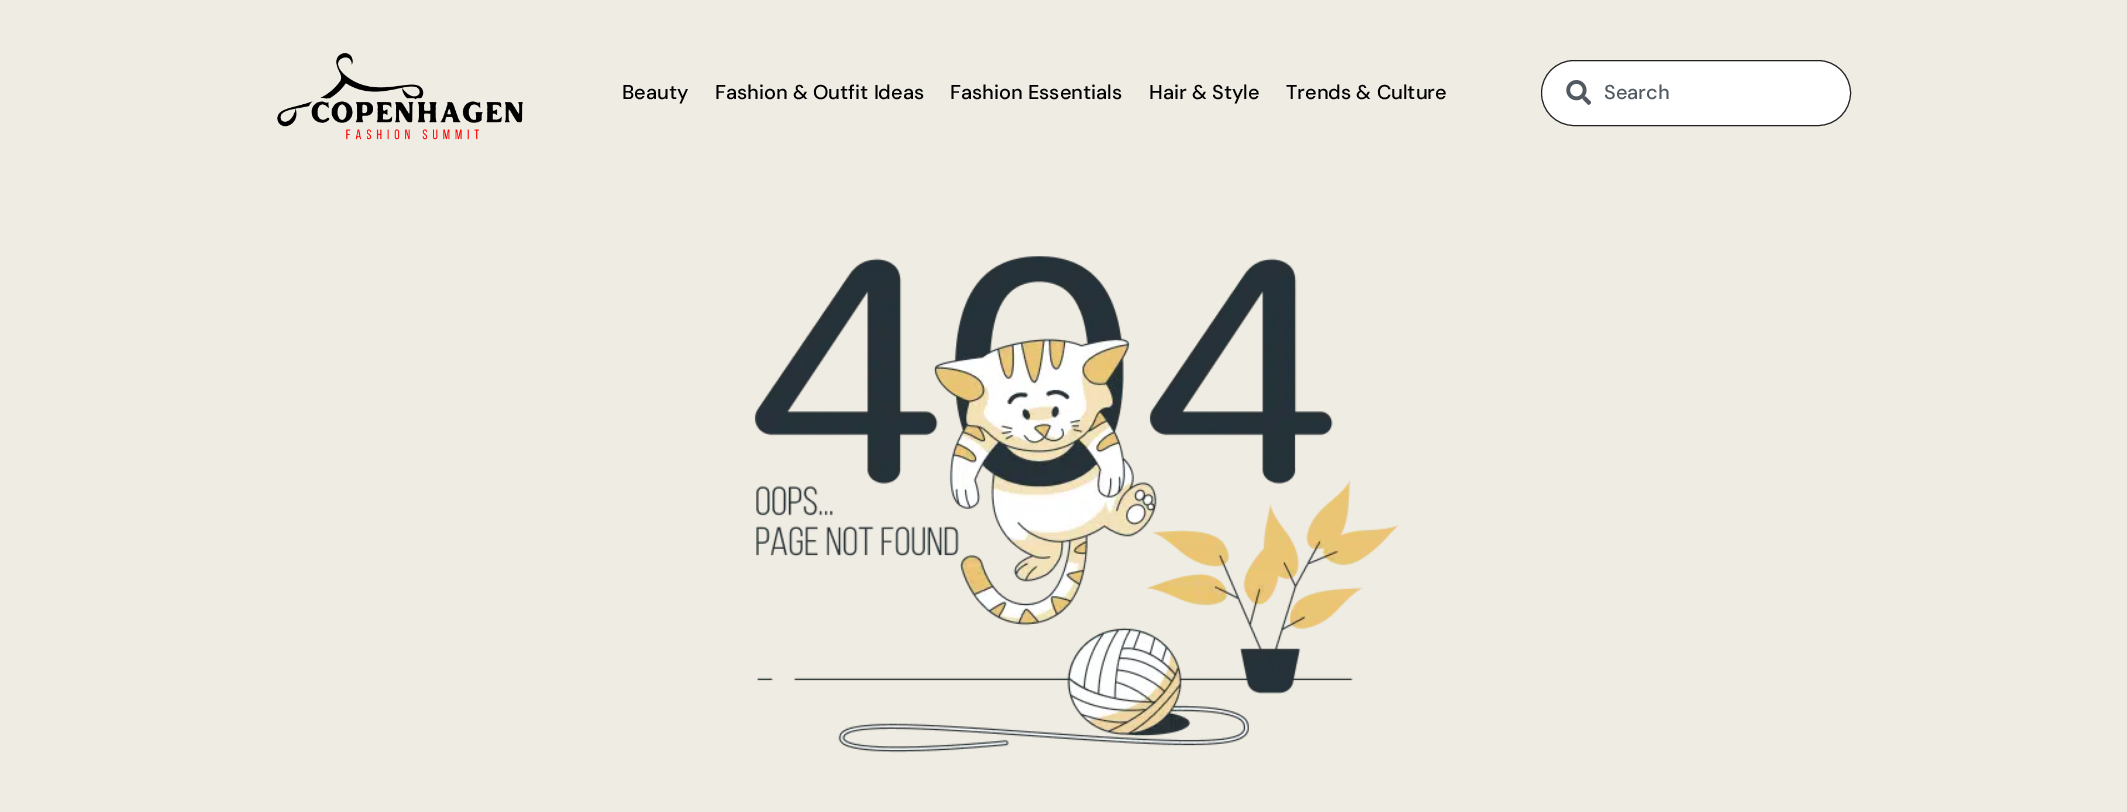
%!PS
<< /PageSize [2127 812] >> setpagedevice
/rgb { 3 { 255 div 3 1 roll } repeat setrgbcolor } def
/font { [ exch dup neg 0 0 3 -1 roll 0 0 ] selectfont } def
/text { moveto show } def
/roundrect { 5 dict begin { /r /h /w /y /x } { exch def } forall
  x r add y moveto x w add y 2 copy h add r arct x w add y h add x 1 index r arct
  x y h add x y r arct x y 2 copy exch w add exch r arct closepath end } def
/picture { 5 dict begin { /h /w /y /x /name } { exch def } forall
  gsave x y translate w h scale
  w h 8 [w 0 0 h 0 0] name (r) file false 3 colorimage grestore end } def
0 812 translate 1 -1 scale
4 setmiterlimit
239 236 227 rgb
0 0 2127 812 rectfill
(img_01.rgb) 277 52 246 88 picture
255 255 255 rgb
1541.5 60.5 309 65 32.5 roundrect gsave fill grestore
34 34 34 rgb
stroke
(img_02.rgb) 1566 80 25 25 picture
(img_03.rgb) 754 256 645 497 picture
/DMSans-Medium 20 font
0 0 0 rgb
(Beauty) 622 99 text
(Fashion & Outfit Ideas) 715 99 text
(Fashion Essentials) 950 99 text
(Hair & Style) 1149 99 text
(Trends & Culture) 1286 99 text
81 89 98 rgb
(Search) 1604 99 text
showpage
